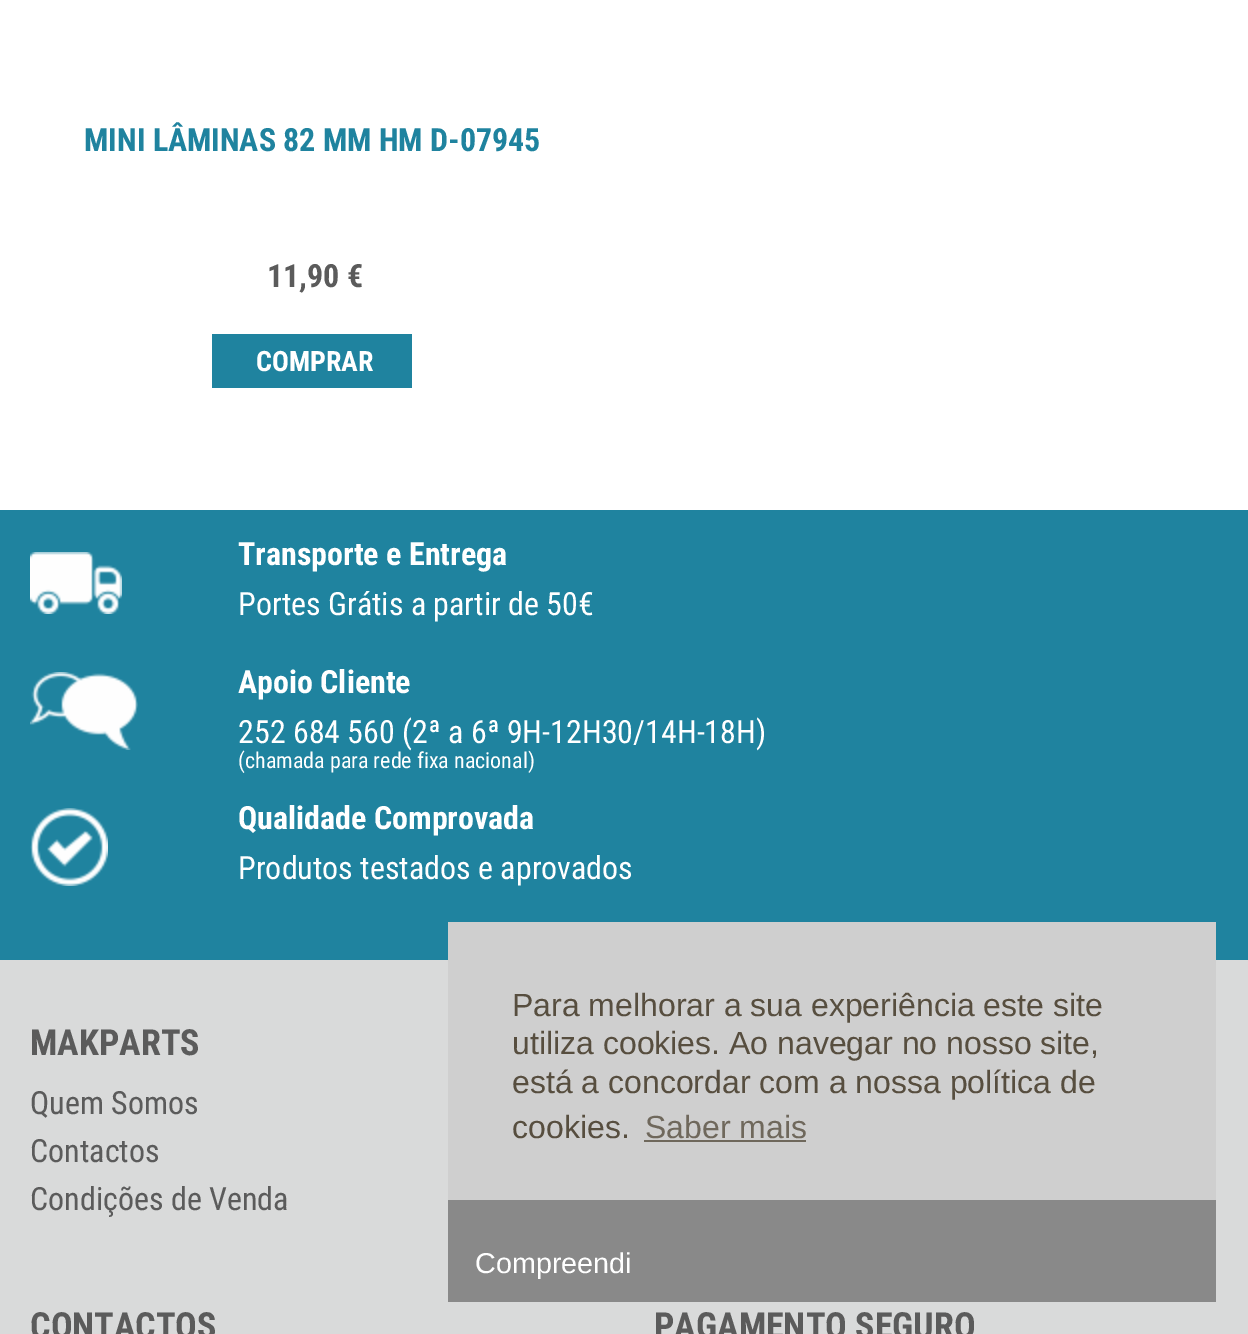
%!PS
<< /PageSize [1248 1334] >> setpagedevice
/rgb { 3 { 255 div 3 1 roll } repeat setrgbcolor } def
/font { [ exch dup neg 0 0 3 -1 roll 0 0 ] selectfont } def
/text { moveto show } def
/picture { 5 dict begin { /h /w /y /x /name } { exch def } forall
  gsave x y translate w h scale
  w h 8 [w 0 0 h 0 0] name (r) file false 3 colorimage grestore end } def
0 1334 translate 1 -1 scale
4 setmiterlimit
255 255 255 rgb
0 0 1248 1334 rectfill
31 131 159 rgb
212 334 200 54 rectfill
217 218 218 rgb
0 960 1248 374 rectfill
31 131 159 rgb
0 510 1248 450 rectfill
(img_01.rgb) 30 552 92 62 picture
(img_02.rgb) 30 672 108 78 picture
(img_03.rgb) 30 808 78 78 picture
207 207 207 rgb
448 922 768 278 rectfill
111 104 92 rgb
644 1140 162 2 rectfill
137 137 137 rgb
448 1200 768 102 rectfill
/RobotoCondensed-Bold 32 font
31 131 159 rgb
(MINI LÂMINAS 82 MM HM D-07945) 84 151 text
91 91 91 rgb
(11,90 €) 267 287 text
/RobotoCondensed-Bold 28 font
255 255 255 rgb
(COMPRAR) 256 371 text
/RobotoCondensed-Bold 32 font
(Transporte e Entrega) 238 565 text
/RobotoCondensed-Regular 32 font
(Portes Grátis a partir de 50€) 238 615 text
/RobotoCondensed-Bold 32 font
(Apoio Cliente) 238 693 text
/RobotoCondensed-Regular 32 font
(252 684 560 \(2ª a 6ª 9H-12H30/14H-18H\)) 238 743 text
/RobotoCondensed-Regular 22 font
(\(chamada para rede fixa nacional\)) 238 768 text
/RobotoCondensed-Bold 32 font
(Qualidade Comprovada) 238 829 text
/RobotoCondensed-Regular 32 font
(Produtos testados e aprovados) 238 879 text
/RobotoCondensed-Bold 36 font
91 91 91 rgb
(MAKPARTS) 30 1055 text
/RobotoCondensed-Regular 32 font
(Quem Somos) 30 1114 text
(Contactos) 30 1162 text
(Condições de Venda) 30 1210 text
/RobotoCondensed-Bold 36 font
(CONTACTOS) 30 1338 text
(PAGAMENTO SEGURO) 654 1338 text
/LiberationSans-Regular 32 font
87 78 63 rgb
(Para melhorar a sua experiência este site) 512 1016 text
(utiliza cookies. Ao navegar no nosso site,) 512 1054 text
(está a concordar com a nossa política de) 512 1093 text
(cookies.) 512 1138 text
111 104 92 rgb
(Saber mais) 645 1138 text
/LiberationSans-Regular 28.75 font
255 255 255 rgb
(Compreendi) 475 1273 text
showpage
